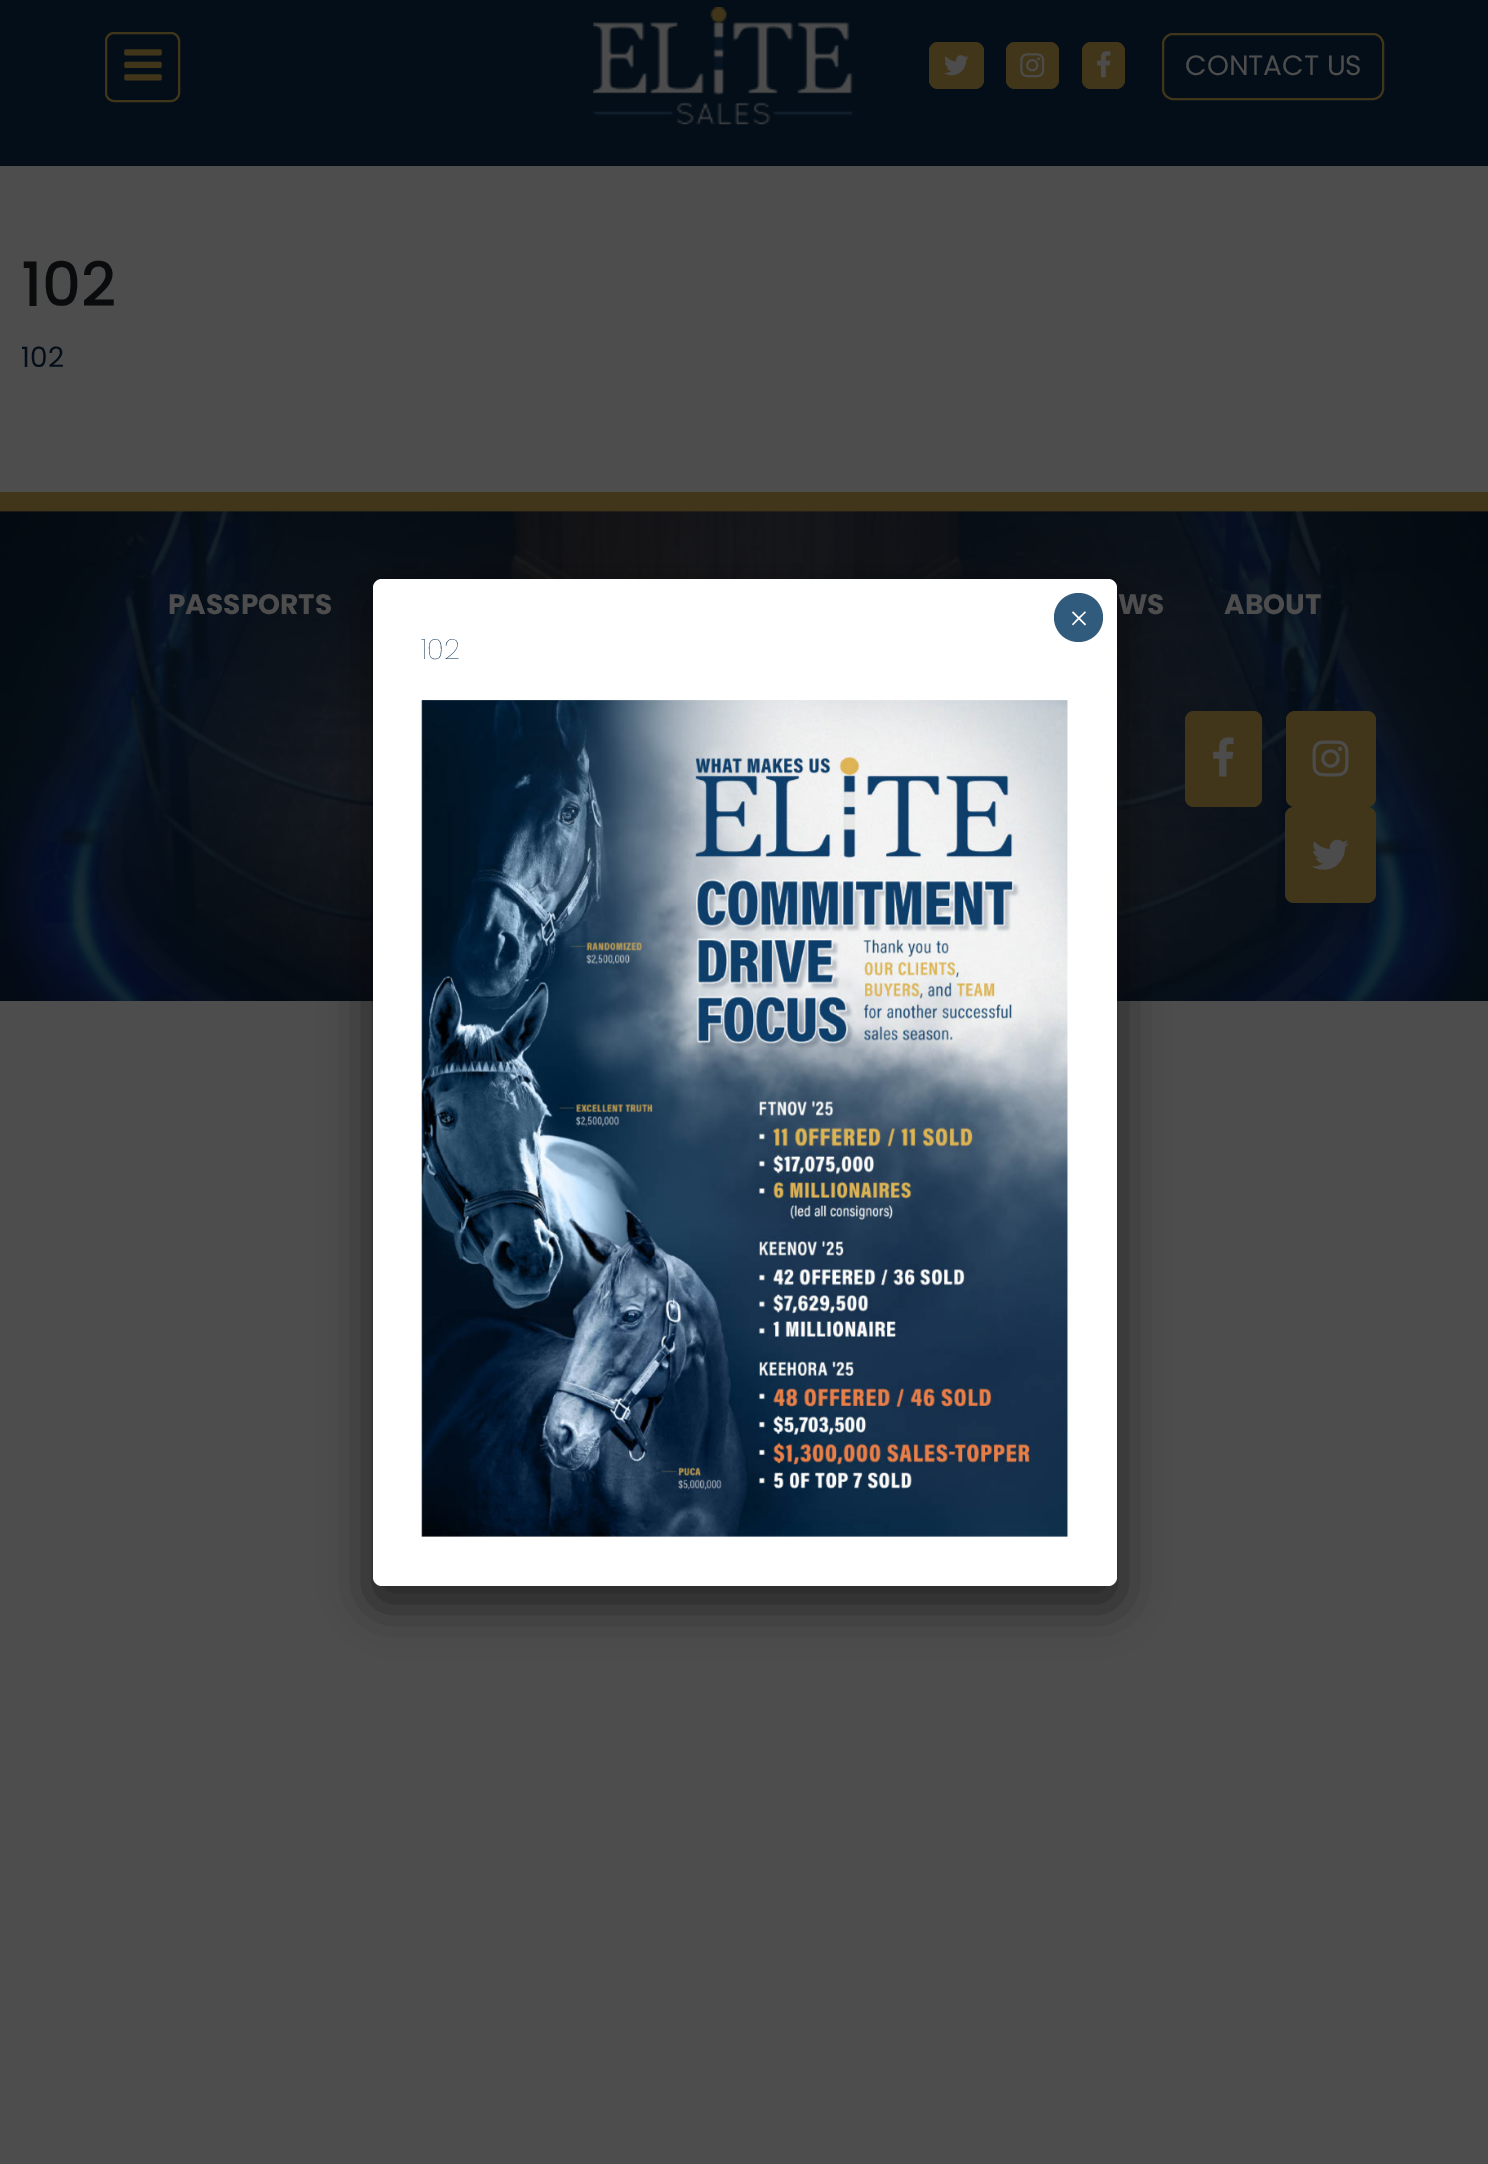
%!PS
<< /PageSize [1488 2164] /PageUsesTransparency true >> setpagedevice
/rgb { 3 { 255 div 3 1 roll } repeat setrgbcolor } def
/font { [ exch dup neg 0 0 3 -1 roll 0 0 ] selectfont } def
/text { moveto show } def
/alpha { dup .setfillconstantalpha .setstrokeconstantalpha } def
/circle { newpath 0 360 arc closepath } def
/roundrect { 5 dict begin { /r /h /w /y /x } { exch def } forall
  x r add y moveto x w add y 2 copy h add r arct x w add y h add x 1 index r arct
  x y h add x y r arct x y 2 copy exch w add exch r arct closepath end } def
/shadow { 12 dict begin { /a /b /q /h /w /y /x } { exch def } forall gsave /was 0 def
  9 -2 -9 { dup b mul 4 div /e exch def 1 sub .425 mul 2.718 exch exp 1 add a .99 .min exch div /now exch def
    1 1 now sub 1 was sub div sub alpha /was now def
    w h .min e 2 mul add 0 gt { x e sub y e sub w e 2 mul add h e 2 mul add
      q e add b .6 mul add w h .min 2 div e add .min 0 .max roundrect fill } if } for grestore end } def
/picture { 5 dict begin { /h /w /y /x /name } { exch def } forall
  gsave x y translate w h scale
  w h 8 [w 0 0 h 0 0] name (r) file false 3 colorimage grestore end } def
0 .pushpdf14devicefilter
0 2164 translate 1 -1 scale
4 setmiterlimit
77 77 77 rgb
0 0 1488 2164 rectfill
3 14 24 rgb
0 0 1488 166 rectfill
66 54 26 rgb
2 setlinewidth
106 33 73 68 8 roundrect stroke
(img_01.rgb) 124 49 38 32 picture
(img_02.rgb) 593 7 260 118 picture
929 42 55 47 9 roundrect fill
(img_03.rgb) 944 55 25 21 picture
1006 42 53 47 9 roundrect fill
(img_04.rgb) 1020 53 25 25 picture
1082 42 43 47 9 roundrect fill
(img_05.rgb) 1097 51 14 27 picture
1163 34 220 65 10 roundrect stroke
(img_06.rgb) 0 501 1488 500 picture
0 492 1488 9 rectfill
1185 711 77 96 9 roundrect fill
(img_07.rgb) 1213 737 21 40 picture
1286 711 90 96 9 roundrect fill
(img_08.rgb) 1312 740 37 37 picture
1285 807 91 96 9 roundrect fill
(img_09.rgb) 1312 839 37 31 picture
2 2 2 rgb
366 590 758 1020 16 22 0.5 shadow
255 255 255 rgb
373 579 744 1007 9 roundrect fill
49 91 124 rgb
1078.5 617.5 24.5 circle fill
(img_10.rgb) 421 700 648 837 picture
/Poppins-Regular 28 font
77 77 77 rgb
(CONTACT US) 1185 75 text
/Poppins-Medium 61 font
10 11 12 rgb
(102) 21 306 text
/Poppins-Regular 28 font
3 14 24 rgb
(102) 21 367 text
/Poppins-Bold 28 font
77 77 77 rgb
(PASSPORTS) 168 614 text
(WS) 1118 614 text
(ABOUT) 1224 614 text
/LiberationSerif-Regular 35 font
255 255 255 rgb
(×) 1069 630 text
/Poppins-Thin 28 font
9 46 81 rgb
(102) 421 659 text
.poppdf14devicefilter showpage
